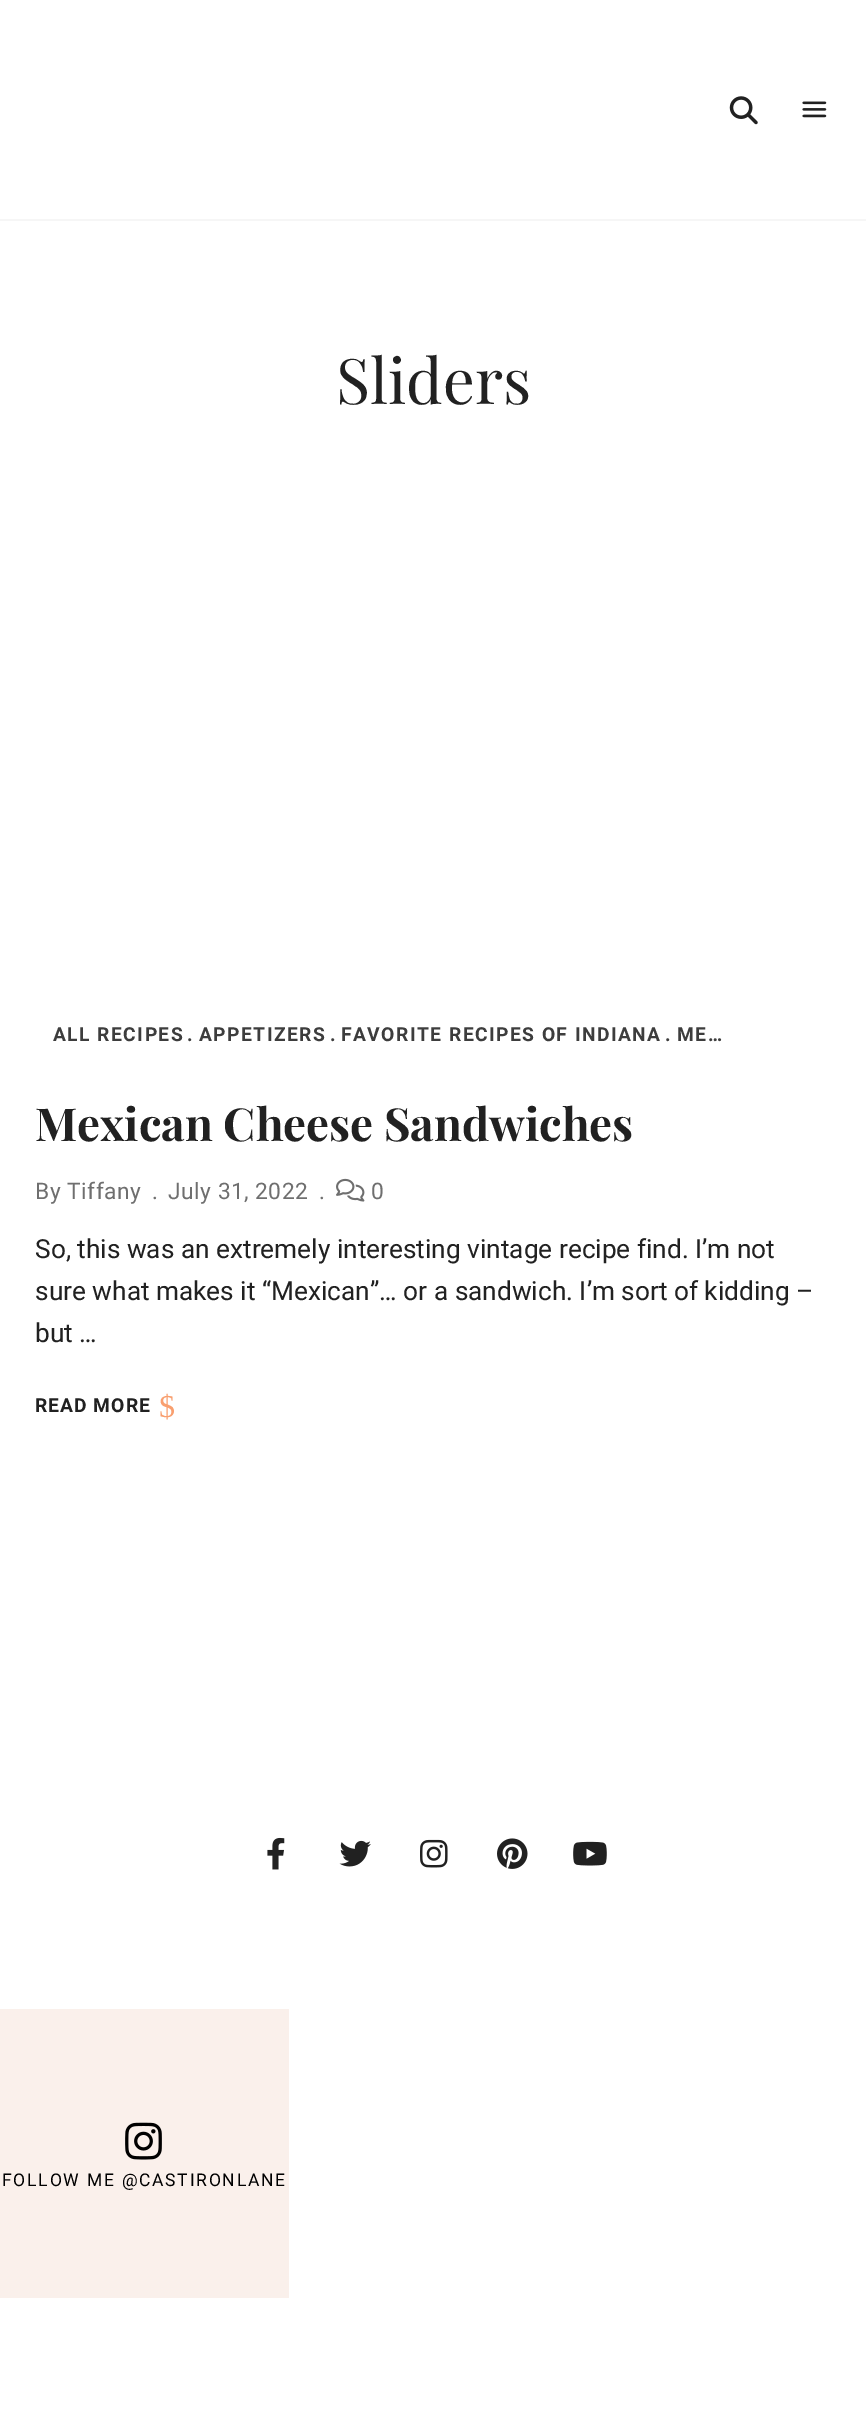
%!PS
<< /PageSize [866 2427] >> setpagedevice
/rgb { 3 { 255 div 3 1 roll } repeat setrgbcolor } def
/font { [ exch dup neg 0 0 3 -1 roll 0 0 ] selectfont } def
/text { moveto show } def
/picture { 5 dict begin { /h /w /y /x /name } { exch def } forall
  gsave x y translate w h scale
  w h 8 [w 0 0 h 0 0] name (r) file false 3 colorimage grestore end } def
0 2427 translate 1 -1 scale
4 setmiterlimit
255 255 255 rgb
0 0 866 2427 rectfill
246 246 246 rgb
0 219 866 2 rectfill
(img_01.rgb) 729 96 29 29 picture
(img_02.rgb) 802 101 25 17 picture
(img_03.rgb) 336 1178 29 24 picture
(img_04.rgb) 267 1837 18 33 picture
(img_05.rgb) 339 1840 32 27 picture
(img_06.rgb) 420 1839 28 29 picture
(img_07.rgb) 497 1838 31 31 picture
(img_08.rgb) 573 1841 34 25 picture
250 240 235 rgb
0 2009 289 289 rectfill
(img_09.rgb) 125 2122 37 38 picture
/PlayfairDisplay-Regular 63 font
33 33 33 rgb
(Sliders) 336 404 text
/Roboto-Bold 19.25 font
61 61 61 rgb
53 1041 moveto 1.45 0 (ALL RECIPES) ashow
187 1041 moveto 1.45 0 (.) ashow
199 1041 moveto 1.45 0 (APPETIZERS) ashow
330 1041 moveto 1.45 0 (.) ashow
341 1041 moveto 1.45 0 (FAVORITE RECIPES OF INDIANA) ashow
665 1041 moveto 1.45 0 (.) ashow
677 1041 moveto 1.45 0 (ME…) ashow
/PlayfairDisplay-Bold 45.5 font
33 33 33 rgb
(Mexican Cheese Sandwiches) 35 1141 text
/Roboto-Regular 22.75 font
111 111 111 rgb
35 1199 moveto 0.5 0 (By Tiffany) ashow
152 1199 moveto 0.5 0 (.) ashow
168 1199 moveto 0.5 0 (July 31, 2022) ashow
319 1199 moveto 0.5 0 (.) ashow
371 1199 moveto 0.5 0 (0) ashow
/Roboto-Regular 26.25 font
33 33 33 rgb
(So, this was an extremely interesting vintage recipe find. I’m not) 35 1258 text
(sure what makes it “Mexican”… or a sandwich. I’m sort of kidding –) 35 1300 text
(but …) 35 1342 text
/Roboto-Bold 19.25 font
35 1412 moveto 1 0 (READ MORE) ashow
/LiberationSerif-Regular 32 font
249 159 111 rgb
159 1417 moveto 1 0 ($) ashow
/Roboto-Regular 17.5 font
0 0 0 rgb
2 2186 moveto 1.75 0 (FOLLOW ME @CASTIRONLANE) ashow
showpage
